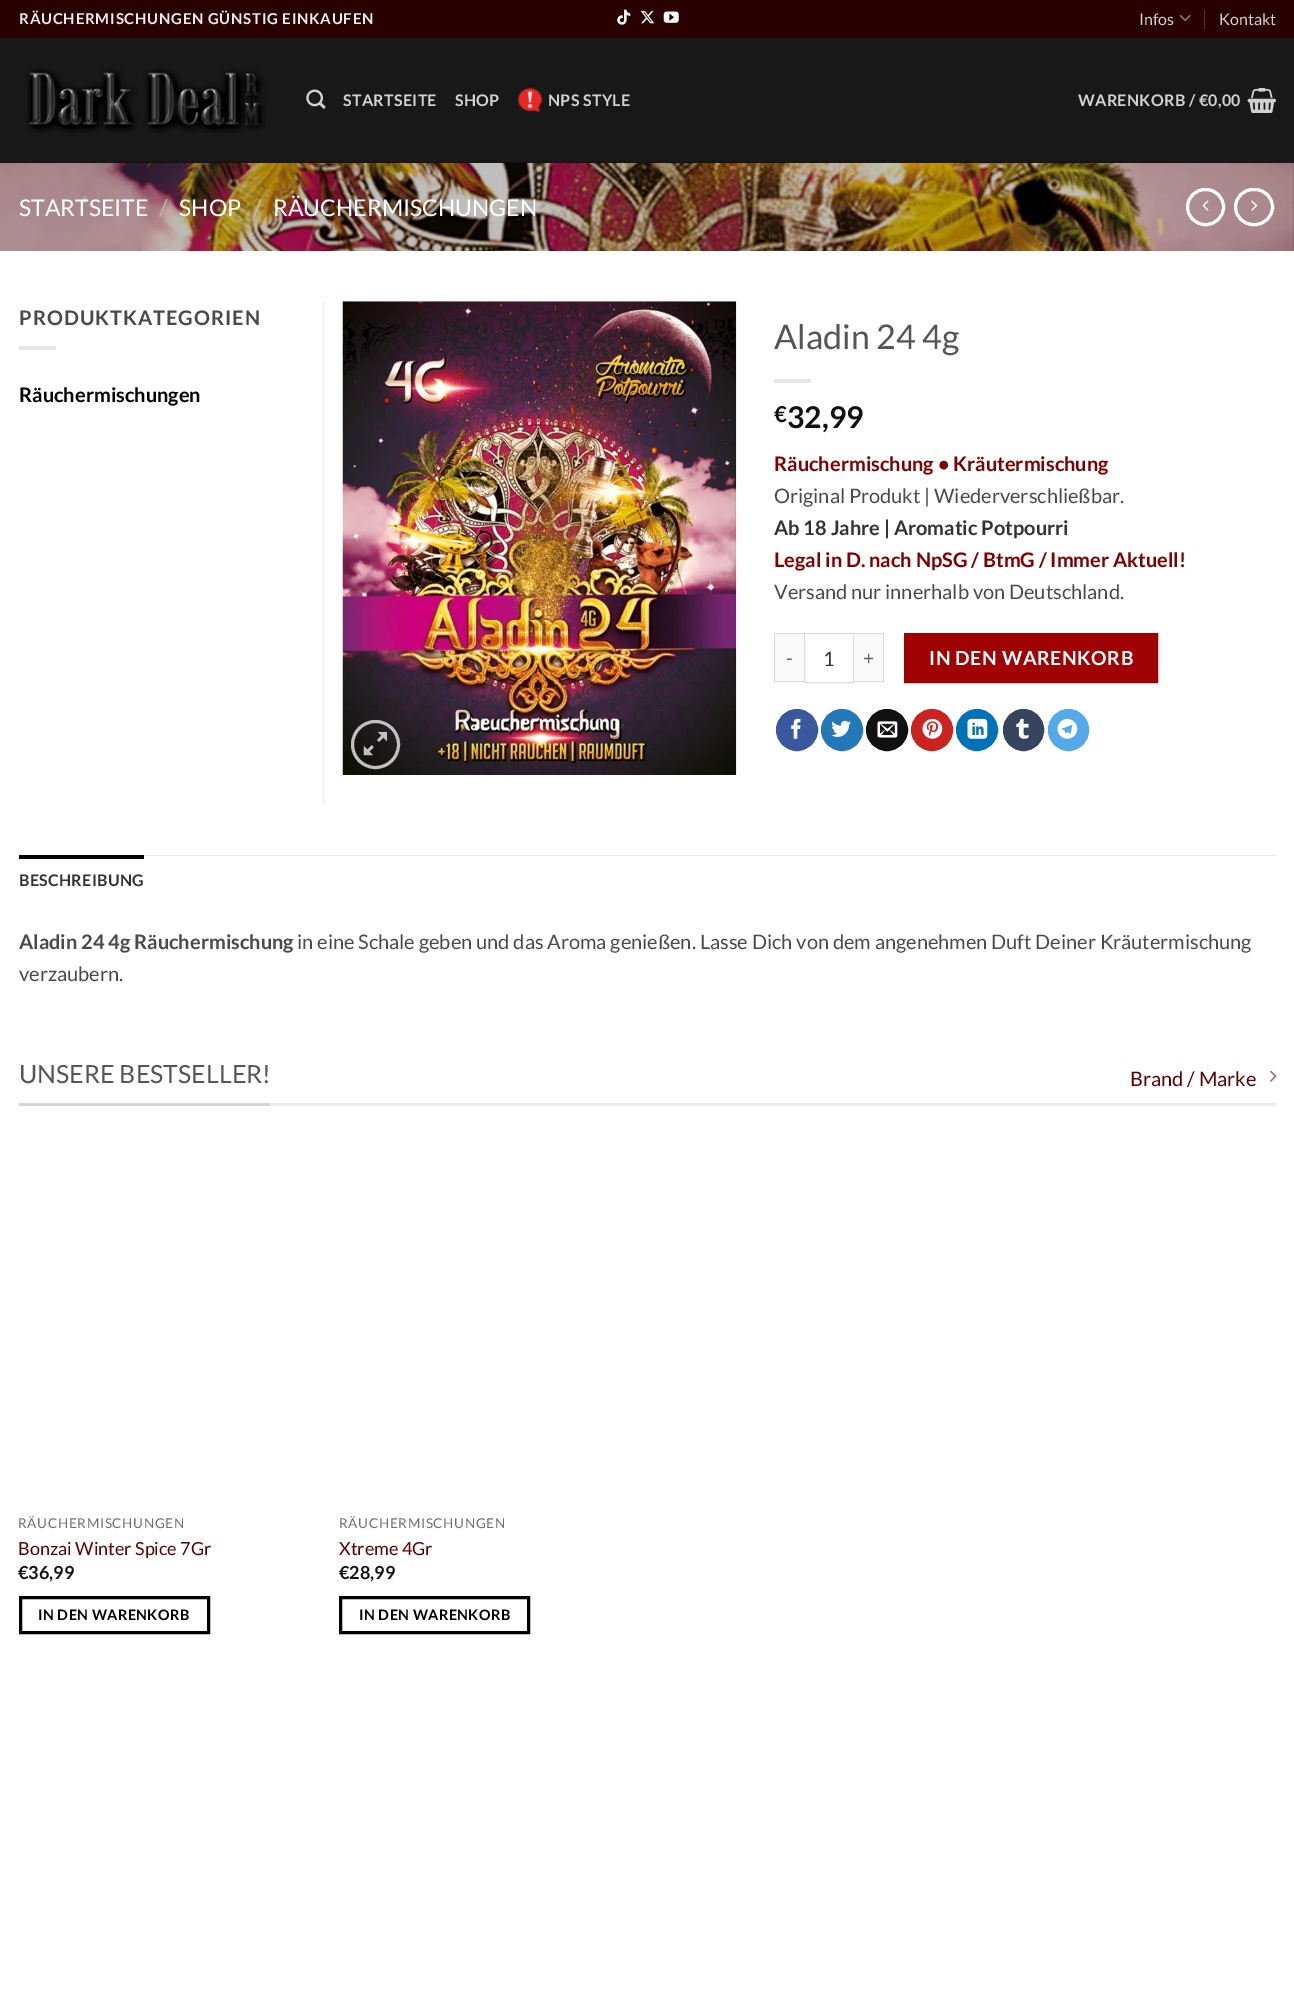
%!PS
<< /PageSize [1294 2013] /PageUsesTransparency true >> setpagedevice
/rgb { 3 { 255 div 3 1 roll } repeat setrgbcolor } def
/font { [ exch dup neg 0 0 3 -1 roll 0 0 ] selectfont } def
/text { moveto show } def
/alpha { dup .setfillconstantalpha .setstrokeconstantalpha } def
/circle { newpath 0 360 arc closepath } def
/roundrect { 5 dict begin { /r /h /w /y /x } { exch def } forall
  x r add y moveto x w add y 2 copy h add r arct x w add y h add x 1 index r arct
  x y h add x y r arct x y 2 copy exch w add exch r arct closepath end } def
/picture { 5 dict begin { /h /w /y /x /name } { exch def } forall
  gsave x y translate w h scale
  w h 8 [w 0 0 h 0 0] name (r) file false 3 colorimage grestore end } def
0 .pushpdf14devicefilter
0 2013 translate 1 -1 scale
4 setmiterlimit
255 255 255 rgb
0 0 1294 2013 rectfill
40 0 0 rgb
0 0 1294 38 rectfill
(img_01.rgb) 617 9 14 16 picture
(img_02.rgb) 640 11 15 13 picture
(img_03.rgb) 663 11 16 12 picture
(img_04.rgb) 1179 14 12 8 picture
83 51 51 rgb
1204 10 1 19 rectfill
(img_09.rgb) 0 162 1294 89 picture
0.96 alpha
15 15 15 rgb
0 38 1294 125 rectfill
1 alpha
(img_05.rgb) 27 68 238 65 picture
(img_06.rgb) 306 89 20 20 picture
(img_07.rgb) 517 87 26 26 picture
(img_08.rgb) 1247 88 29 25 picture
255 255 255 rgb
3 setlinewidth
1187.5 189.5 36 35 17.5 roundrect stroke
(img_10.rgb) 1202 200 7 11 picture
1235.5 189.5 37 35 17.5 roundrect stroke
(img_11.rgb) 1251 200 7 11 picture
236 236 236 rgb
323 301 1 504 rectfill
230 230 230 rgb
19 346 37 4 rectfill
(img_12.rgb) 342 301 395 474 picture
192 192 192 rgb
375.5 744.5 23 circle stroke
(img_13.rgb) 363 731 25 25 picture
230 230 230 rgb
774 379 37 4 rectfill
249 249 249 rgb
775 634 29 49 rectfill
221 221 221 rgb
774 633 30 1 rectfill
774 681 30 1 rectfill
774 633 1 50 rectfill
1 setlinewidth
804.5 633.5 49 49 rectstroke
249 249 249 rgb
854 634 29 49 rectfill
221 221 221 rgb
854 633 30 1 rectfill
883 633 1 50 rectfill
854 681 30 1 rectfill
159 3 3 rgb
904.5 633.5 moveto 253 0 rlineto 0 49 rlineto -253 0 rlineto closepath gsave fill grestore
151 3 3 rgb
stroke
58 88 157 rgb
797 730 20.5 circle gsave fill grestore
stroke
(img_14.rgb) 791 718 10 21 picture
36 120 186 rgb
842 730 20.5 circle gsave fill grestore
stroke
(img_15.rgb) 831 720 20 17 picture
17 17 17 rgb
887 730 20.5 circle gsave fill grestore
stroke
(img_16.rgb) 877 721 21 17 picture
203 35 32 rgb
932 730 20.5 circle gsave fill grestore
stroke
(img_17.rgb) 922 718 21 21 picture
0 114 183 rgb
977 730 20.5 circle gsave fill grestore
stroke
(img_18.rgb) 967 718 21 21 picture
54 69 93 rgb
1003.5 709.5 40 41 20 roundrect gsave fill grestore
stroke
(img_19.rgb) 1016 718 13 21 picture
84 169 234 rgb
1048.5 709.5 40 41 20 roundrect gsave fill grestore
stroke
(img_20.rgb) 1057 718 21 21 picture
236 236 236 rgb
144 855 1132 1 rectfill
0 0 0 rgb
19 855 125 4 rectfill
236 236 236 rgb
270 1103 1006 3 rectfill
212 212 212 rgb
19 1103 251 3 rectfill
(img_21.rgb) 1270 1070 7 12 picture
0 0 0 rgb
3 setlinewidth
20.5 1597.5 188 35 rectstroke
340.5 1597.5 188 35 rectstroke
/Lato-Bold 15 font
237 237 237 rgb
19 24 moveto 0.75 0 (RÄUCHERMISCHUNGEN GÜNSTIG EINKAUFEN) ashow
/Lato-Regular 16 font
209 209 209 rgb
(Infos) 1139 25 text
(Kontakt) 1219 25 text
/Lato-Bold 16 font
343 106 moveto 0.3 0 (STARTSEITE) ashow
455 106 moveto 0.3 0 (SHOP) ashow
548 106 moveto 0.3 0 (NPS STYLE) ashow
1078 106 moveto 0.3 0 (WARENKORB / €0,00) ashow
/Lato-Regular 23 font
255 255 255 rgb
(STARTSEITE) 19 216 text
202 172 177 rgb
(/) 159 216 text
255 255 255 rgb
(SHOP) 179 216 text
204 187 140 rgb
(/) 253 216 text
255 255 255 rgb
(RÄUCHERMISCHUNGEN) 273 216 text
/Lato-Bold 20 font
74 74 74 rgb
19 325 moveto 1 0 (PRODUKTKATEGORIEN) ashow
0 0 0 rgb
(Räuchermischungen) 19 402 text
/Lato-Regular 34 font
85 85 85 rgb
(Aladin 24 4g) 774 349 text
/Lato-Bold 22 font
17 17 17 rgb
(€) 774 422 text
/Lato-Bold 30 font
(32,99) 787 428 text
/Lato-Bold 20 font
128 0 0 rgb
(Räuchermischung • Kräutermischung) 774 471 text
/Lato-Regular 20 font
74 74 74 rgb
(Original Produkt | Wiederverschließbar.) 774 503 text
/Lato-Bold 20 font
51 51 51 rgb
(Ab 18 Jahre | Aromatic Potpourri) 774 535 text
128 0 0 rgb
(Legal in D. nach NpSG / BtmG / Immer Aktuell!) 774 567 text
/Lato-Regular 20 font
74 74 74 rgb
(Versand nur innerhalb von Deutschland.) 774 599 text
/Lato-Regular 19.4 font
102 102 102 rgb
786 665 moveto 0.6 0 (-) ashow
/Lato-Regular 20 font
51 51 51 rgb
(1) 823 666 text
/Lato-Regular 19.4 font
102 102 102 rgb
863 665 moveto 0.6 0 (+) ashow
/Lato-Bold 19.4 font
255 255 255 rgb
929 665 moveto 0.6 0 (IN DEN WARENKORB) ashow
/Lato-Bold 16 font
51 51 51 rgb
19 886 moveto 0.3 0 (BESCHREIBUNG) ashow
/Lato-Bold 20 font
74 74 74 rgb
(Aladin 24 4g Räuchermischung) 19 949 text
/Lato-Regular 20 font
(in eine Schale geben und das Aroma genießen. Lasse Dich von dem angenehmen Duft Deiner Kräutermischung) 297 949 text
(verzaubern.) 19 981 text
/Lato-Regular 25 font
85 85 85 rgb
(UNSERE BESTSELLER!) 19 1083 text
/Lato-Regular 20 font
95 0 0 rgb
(Brand / Marke) 1130 1086 text
/Lato-Regular 13.5 font
110 110 110 rgb
18 1528 moveto 0.7 0 (RÄUCHERMISCHUNGEN) ashow
/Lato-Regular 18 font
95 0 0 rgb
(Bonzai Winter Spice 7Gr) 18 1555 text
/Lato-Bold 18 font
17 17 17 rgb
(€36,99) 18 1579 text
/Lato-Bold 14.4 font
0 0 0 rgb
38 1620 moveto 0.4 0 (IN DEN WARENKORB) ashow
/Lato-Regular 13.5 font
110 110 110 rgb
339 1528 moveto 0.7 0 (RÄUCHERMISCHUNGEN) ashow
/Lato-Regular 18 font
95 0 0 rgb
(Xtreme 4Gr) 339 1555 text
/Lato-Bold 18 font
17 17 17 rgb
(€28,99) 339 1579 text
/Lato-Bold 14.4 font
0 0 0 rgb
359 1620 moveto 0.4 0 (IN DEN WARENKORB) ashow
.poppdf14devicefilter showpage
